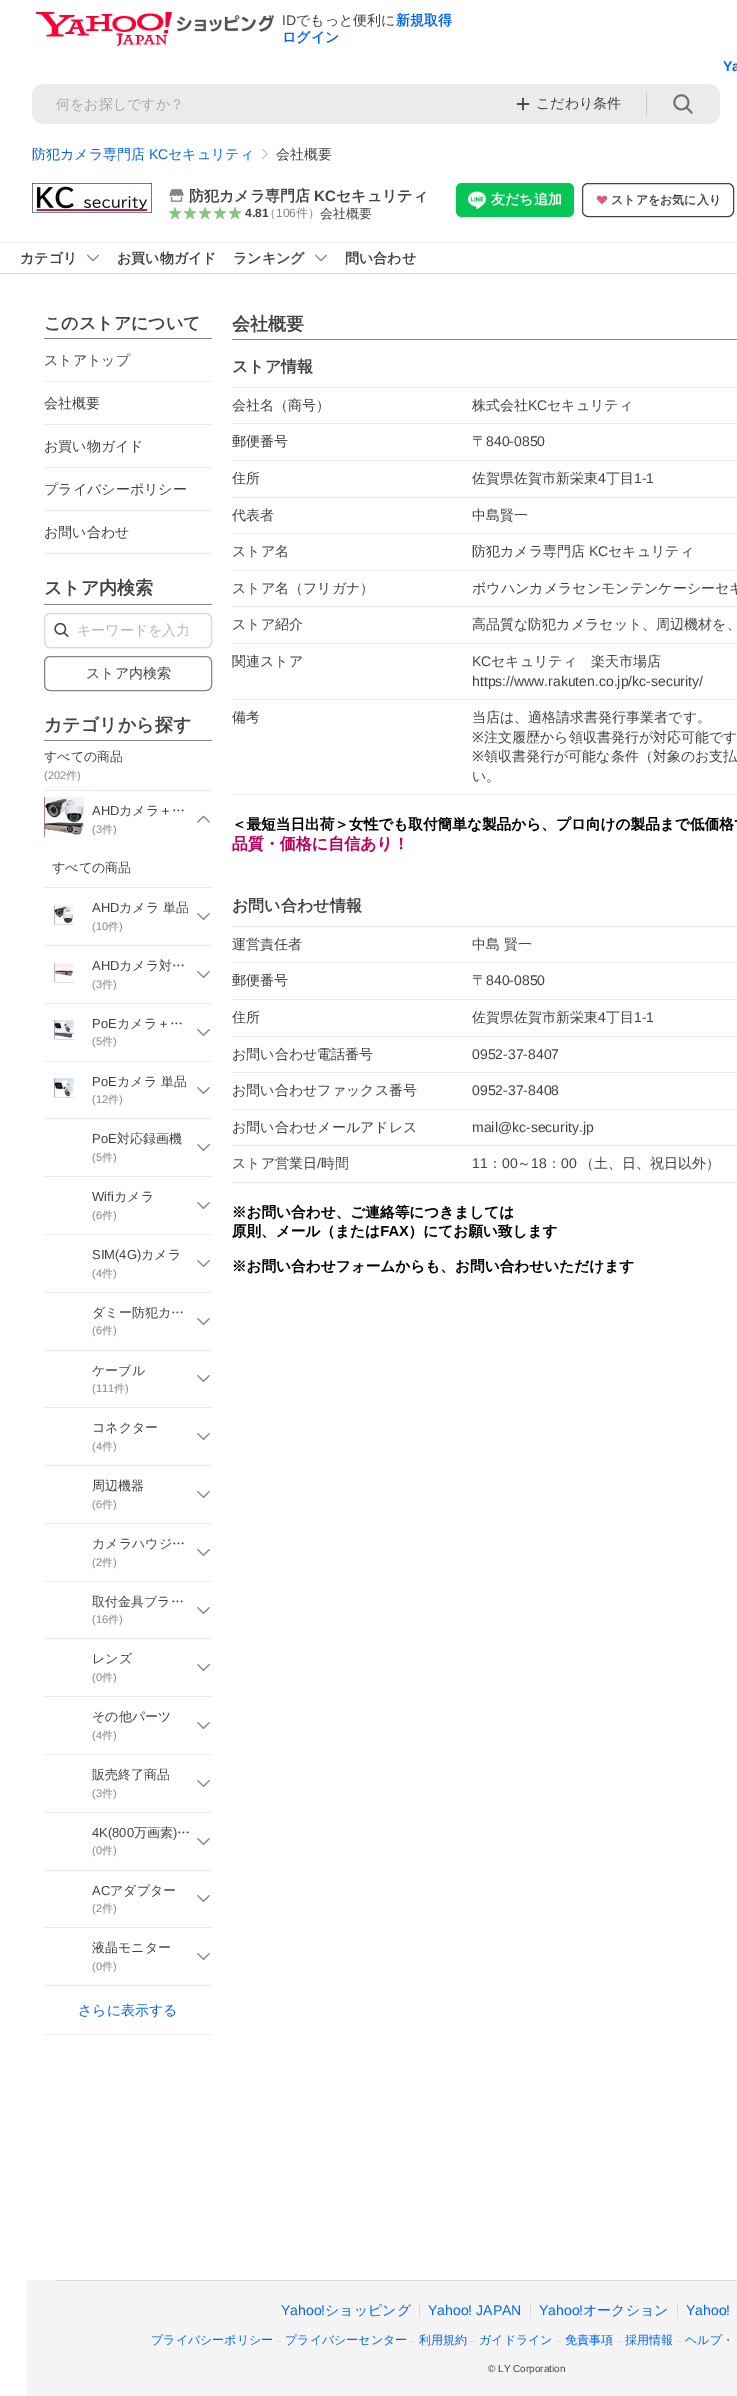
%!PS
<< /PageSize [737 2396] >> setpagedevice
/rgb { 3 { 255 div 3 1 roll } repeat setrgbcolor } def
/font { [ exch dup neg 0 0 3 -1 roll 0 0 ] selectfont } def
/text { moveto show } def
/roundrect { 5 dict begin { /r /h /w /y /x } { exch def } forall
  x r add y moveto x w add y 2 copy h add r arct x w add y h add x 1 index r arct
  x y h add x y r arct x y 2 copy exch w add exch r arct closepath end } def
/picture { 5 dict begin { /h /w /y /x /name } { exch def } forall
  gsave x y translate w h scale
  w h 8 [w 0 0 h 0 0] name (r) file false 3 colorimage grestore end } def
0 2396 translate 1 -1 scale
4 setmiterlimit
255 255 255 rgb
0 0 737 2396 rectfill
(img_01.rgb) 36 12 238 34 picture
235 235 235 rgb
32 84 688 40 12 roundrect fill
(img_02.rgb) 516 97 14 14 picture
200 200 200 rgb
646 92 1 24 rectfill
(img_03.rgb) 673 94 20 20 picture
(img_04.rgb) 262 148 6 12 picture
(img_05.rgb) 32 183 120 30 picture
(img_06.rgb) 169 189 15 13 picture
(img_07.rgb) 168 207 14 13 picture
(img_07.rgb) 183 207 14 13 picture
(img_07.rgb) 198 207 14 13 picture
(img_07.rgb) 213 207 14 13 picture
(img_07.rgb) 228 207 14 13 picture
6 199 85 rgb
456 183 118 34 6 roundrect fill
(img_08.rgb) 468 191 18 18 picture
67 67 67 rgb
582.5 183.5 151 33 5.5 roundrect stroke
(img_09.rgb) 596 195 12 10 picture
235 235 235 rgb
0 242 737 1 rectfill
217 217 217 rgb
0 273 737 1 rectfill
(img_10.rgb) 87 254 12 8 picture
(img_10.rgb) 315 254 12 8 picture
134 134 134 rgb
44 338 168 1 rectfill
235 235 235 rgb
44 381 168 1 rectfill
44 424 168 1 rectfill
44 467 168 1 rectfill
44 510 168 1 rectfill
44 553 168 1 rectfill
134 134 134 rgb
44 604 168 1 rectfill
217 217 217 rgb
44.5 613.5 167 34 5.5 roundrect stroke
(img_11.rgb) 54 622 15 16 picture
134 134 134 rgb
44.5 656.5 167 34 5.5 roundrect stroke
44 740 168 1 rectfill
235 235 235 rgb
44 790 168 1 rectfill
44 887 168 1 rectfill
(img_12.rgb) 44 797 40 40 picture
(img_13.rgb) 197 815 13 8 picture
44 945 168 1 rectfill
(img_14.rgb) 54 905 20 20 picture
(img_15.rgb) 197 913 13 7 picture
44 1003 168 1 rectfill
(img_16.rgb) 54 963 20 20 picture
(img_15.rgb) 197 971 13 7 picture
44 1061 168 1 rectfill
(img_17.rgb) 54 1020 21 20 picture
(img_15.rgb) 197 1029 13 7 picture
44 1118 168 1 rectfill
(img_18.rgb) 54 1078 21 20 picture
(img_15.rgb) 197 1087 13 7 picture
44 1176 168 1 rectfill
(img_15.rgb) 197 1144 13 7 picture
44 1234 168 1 rectfill
(img_15.rgb) 197 1202 13 7 picture
44 1292 168 1 rectfill
(img_15.rgb) 197 1260 13 7 picture
44 1350 168 1 rectfill
(img_15.rgb) 197 1318 13 7 picture
44 1407 168 1 rectfill
(img_15.rgb) 197 1375 13 7 picture
44 1465 168 1 rectfill
(img_15.rgb) 197 1433 13 7 picture
44 1523 168 1 rectfill
(img_15.rgb) 197 1491 13 7 picture
44 1581 168 1 rectfill
(img_15.rgb) 197 1549 13 7 picture
44 1638 168 1 rectfill
(img_15.rgb) 197 1607 13 7 picture
44 1696 168 1 rectfill
(img_15.rgb) 197 1664 13 7 picture
44 1754 168 1 rectfill
(img_15.rgb) 197 1722 13 7 picture
44 1812 168 1 rectfill
(img_15.rgb) 197 1780 13 7 picture
44 1870 168 1 rectfill
(img_15.rgb) 197 1838 13 7 picture
44 1927 168 1 rectfill
(img_15.rgb) 197 1895 13 7 picture
44 1985 168 1 rectfill
(img_15.rgb) 197 1953 13 7 picture
44 2034 168 1 rectfill
134 134 134 rgb
232 339 505 1 rectfill
235 235 235 rgb
232 387 505 1 rectfill
232 423 505 1 rectfill
232 460 505 1 rectfill
232 497 505 1 rectfill
232 533 505 1 rectfill
232 570 505 1 rectfill
232 606 505 1 rectfill
232 643 505 1 rectfill
232 699 505 1 rectfill
232 794 505 1 rectfill
(img_19.rgb) 232 816 505 37 picture
232 926 505 1 rectfill
232 962 505 1 rectfill
232 999 505 1 rectfill
232 1036 505 1 rectfill
232 1072 505 1 rectfill
232 1109 505 1 rectfill
232 1145 505 1 rectfill
232 1182 505 1 rectfill
(img_20.rgb) 232 1204 402 70 picture
244 244 244 rgb
27 2280 710 116 rectfill
217 217 217 rgb
57 2280 680 1 rectfill
419 2304 1 14 rectfill
530 2304 1 14 rectfill
677 2304 1 14 rectfill
277 2341 4 1 rectfill
411 2341 4 1 rectfill
471 2341 4 1 rectfill
557 2341 4 1 rectfill
617 2341 4 1 rectfill
677 2341 4 1 rectfill
/LiberationSans-Regular 14 font
67 67 67 rgb
(ID) 282 25 text
/WenQuanYiZenHei-Medium 14 font
(でもっと便利に) 296 25 text
/WenQuanYiZenHei-Bold 14 font
2 101 246 rgb
(新規取得) 396 25 text
(ログイン) 282 42 text
/LiberationSans-Bold 14 font
(Ya) 723 71 text
/WenQuanYiZenHei-Medium 14 font
169 169 169 rgb
(何をお探しですか？) 56 109 text
67 67 67 rgb
(こだわり条件) 536 108 text
2 101 246 rgb
(防犯カメラ専門店) 32 159 text
/LiberationSans-Regular 14 font
(KC) 149 159 text
/WenQuanYiZenHei-Medium 14 font
(セキュリティ) 168 159 text
67 67 67 rgb
(会社概要) 276 159 text
/WenQuanYiZenHei-Bold 15 font
(防犯カメラ専門店) 189 201 text
/LiberationSans-Bold 15 font
(KC) 314 201 text
/WenQuanYiZenHei-Bold 15 font
(セキュリティ) 336 201 text
/LiberationSans-Bold 12 font
(4.81) 245 217 text
/WenQuanYiZenHei-Medium 12 font
134 134 134 rgb
(（) 264 217 text
/LiberationSans-Regular 12 font
(106) 276 217 text
/WenQuanYiZenHei-Medium 12 font
(件）) 296 217 text
/WenQuanYiZenHei-Medium 13 font
67 67 67 rgb
(会社概要) 320 218 text
/WenQuanYiZenHei-Bold 14 font
255 255 255 rgb
(友だち追加) 491 204 text
/WenQuanYiZenHei-Bold 12 font
67 67 67 rgb
(ストアをお気に入り) 611 204 text
/WenQuanYiZenHei-Bold 14 font
(カテゴリ) 20 263 text
(お買い物ガイド) 117 263 text
(ランキング) 233 263 text
(問い合わせ) 345 263 text
/WenQuanYiZenHei-Bold 17 font
(このストアについて) 44 329 text
/WenQuanYiZenHei-Medium 14 font
(ストアトップ) 44 365 text
(会社概要) 44 408 text
(お買い物ガイド) 44 451 text
(プライバシーポリシー) 44 494 text
(お問い合わせ) 44 537 text
/WenQuanYiZenHei-Bold 18 font
(ストア内検索) 44 594 text
/WenQuanYiZenHei-Medium 14 font
184 184 184 rgb
(キーワードを入力) 77 635 text
67 67 67 rgb
(ストア内検索) 86 678 text
/WenQuanYiZenHei-Bold 18 font
(カテゴリから探す) 44 731 text
/WenQuanYiZenHei-Medium 13 font
(すべての商品) 44 761 text
/LiberationSans-Regular 11 font
134 134 134 rgb
(\(202) 44 779 text
/WenQuanYiZenHei-Medium 11 font
(件) 66 779 text
/LiberationSans-Regular 11 font
(\)) 77 779 text
/LiberationSans-Regular 13 font
67 67 67 rgb
(AHD) 92 815 text
/WenQuanYiZenHei-Medium 13 font
(カメラ＋…) 119 815 text
/LiberationSans-Regular 11 font
134 134 134 rgb
(\(3) 92 833 text
/WenQuanYiZenHei-Medium 11 font
(件) 102 833 text
/LiberationSans-Regular 11 font
(\)) 113 833 text
/WenQuanYiZenHei-Medium 13 font
67 67 67 rgb
(すべての商品) 52 872 text
/LiberationSans-Regular 13 font
(AHD) 92 912 text
/WenQuanYiZenHei-Medium 13 font
(カメラ 単品) 119 912 text
/LiberationSans-Regular 11 font
134 134 134 rgb
(\(10) 92 930 text
/WenQuanYiZenHei-Medium 11 font
(件) 108 930 text
/LiberationSans-Regular 11 font
(\)) 119 930 text
/LiberationSans-Regular 13 font
67 67 67 rgb
(AHD) 92 970 text
/WenQuanYiZenHei-Medium 13 font
(カメラ対…) 119 970 text
/LiberationSans-Regular 11 font
134 134 134 rgb
(\(3) 92 988 text
/WenQuanYiZenHei-Medium 11 font
(件) 102 988 text
/LiberationSans-Regular 11 font
(\)) 113 988 text
/LiberationSans-Regular 13 font
67 67 67 rgb
(PoE) 92 1028 text
/WenQuanYiZenHei-Medium 13 font
(カメラ＋…) 117 1028 text
/LiberationSans-Regular 11 font
134 134 134 rgb
(\(5) 92 1045 text
/WenQuanYiZenHei-Medium 11 font
(件) 102 1045 text
/LiberationSans-Regular 11 font
(\)) 113 1045 text
/LiberationSans-Regular 13 font
67 67 67 rgb
(PoE) 92 1086 text
/WenQuanYiZenHei-Medium 13 font
(カメラ 単品) 117 1086 text
/LiberationSans-Regular 11 font
134 134 134 rgb
(\(12) 92 1103 text
/WenQuanYiZenHei-Medium 11 font
(件) 108 1103 text
/LiberationSans-Regular 11 font
(\)) 119 1103 text
/LiberationSans-Regular 13 font
67 67 67 rgb
(PoE) 92 1143 text
/WenQuanYiZenHei-Medium 13 font
(対応録画機) 117 1143 text
/LiberationSans-Regular 11 font
134 134 134 rgb
(\(5) 92 1161 text
/WenQuanYiZenHei-Medium 11 font
(件) 102 1161 text
/LiberationSans-Regular 11 font
(\)) 113 1161 text
/LiberationSans-Regular 13 font
67 67 67 rgb
(Wifi) 92 1201 text
/WenQuanYiZenHei-Medium 13 font
(カメラ) 114 1201 text
/LiberationSans-Regular 11 font
134 134 134 rgb
(\(6) 92 1219 text
/WenQuanYiZenHei-Medium 11 font
(件) 102 1219 text
/LiberationSans-Regular 11 font
(\)) 113 1219 text
/LiberationSans-Regular 13 font
67 67 67 rgb
(SIM\(4G\)) 92 1259 text
/WenQuanYiZenHei-Medium 13 font
(カメラ) 141 1259 text
/LiberationSans-Regular 11 font
134 134 134 rgb
(\(4) 92 1277 text
/WenQuanYiZenHei-Medium 11 font
(件) 102 1277 text
/LiberationSans-Regular 11 font
(\)) 113 1277 text
/WenQuanYiZenHei-Medium 13 font
67 67 67 rgb
(ダミー防犯カ…) 92 1317 text
/LiberationSans-Regular 11 font
134 134 134 rgb
(\(6) 92 1334 text
/WenQuanYiZenHei-Medium 11 font
(件) 102 1334 text
/LiberationSans-Regular 11 font
(\)) 113 1334 text
/WenQuanYiZenHei-Medium 13 font
67 67 67 rgb
(ケーブル) 92 1375 text
/LiberationSans-Regular 11 font
134 134 134 rgb
(\(111) 92 1392 text
/WenQuanYiZenHei-Medium 11 font
(件) 114 1392 text
/LiberationSans-Regular 11 font
(\)) 125 1392 text
/WenQuanYiZenHei-Medium 13 font
67 67 67 rgb
(コネクター) 92 1432 text
/LiberationSans-Regular 11 font
134 134 134 rgb
(\(4) 92 1450 text
/WenQuanYiZenHei-Medium 11 font
(件) 102 1450 text
/LiberationSans-Regular 11 font
(\)) 113 1450 text
/WenQuanYiZenHei-Medium 13 font
67 67 67 rgb
(周辺機器) 92 1490 text
/LiberationSans-Regular 11 font
134 134 134 rgb
(\(6) 92 1508 text
/WenQuanYiZenHei-Medium 11 font
(件) 102 1508 text
/LiberationSans-Regular 11 font
(\)) 113 1508 text
/WenQuanYiZenHei-Medium 13 font
67 67 67 rgb
(カメラハウジ…) 92 1548 text
/LiberationSans-Regular 11 font
134 134 134 rgb
(\(2) 92 1566 text
/WenQuanYiZenHei-Medium 11 font
(件) 102 1566 text
/LiberationSans-Regular 11 font
(\)) 113 1566 text
/WenQuanYiZenHei-Medium 13 font
67 67 67 rgb
(取付金具ブラ…) 92 1606 text
/LiberationSans-Regular 11 font
134 134 134 rgb
(\(16) 92 1623 text
/WenQuanYiZenHei-Medium 11 font
(件) 108 1623 text
/LiberationSans-Regular 11 font
(\)) 119 1623 text
/WenQuanYiZenHei-Medium 13 font
67 67 67 rgb
(レンズ) 92 1663 text
/LiberationSans-Regular 11 font
134 134 134 rgb
(\(0) 92 1681 text
/WenQuanYiZenHei-Medium 11 font
(件) 102 1681 text
/LiberationSans-Regular 11 font
(\)) 113 1681 text
/WenQuanYiZenHei-Medium 13 font
67 67 67 rgb
(その他パーツ) 92 1721 text
/LiberationSans-Regular 11 font
134 134 134 rgb
(\(4) 92 1739 text
/WenQuanYiZenHei-Medium 11 font
(件) 102 1739 text
/LiberationSans-Regular 11 font
(\)) 113 1739 text
/WenQuanYiZenHei-Medium 13 font
67 67 67 rgb
(販売終了商品) 92 1779 text
/LiberationSans-Regular 11 font
134 134 134 rgb
(\(3) 92 1797 text
/WenQuanYiZenHei-Medium 11 font
(件) 102 1797 text
/LiberationSans-Regular 11 font
(\)) 113 1797 text
/LiberationSans-Regular 13 font
67 67 67 rgb
(4K\(800) 92 1837 text
/WenQuanYiZenHei-Medium 13 font
(万画素) 134 1837 text
/LiberationSans-Regular 13 font
(\)) 173 1837 text
/WenQuanYiZenHei-Medium 13 font
(…) 177 1837 text
/LiberationSans-Regular 11 font
134 134 134 rgb
(\(0) 92 1854 text
/WenQuanYiZenHei-Medium 11 font
(件) 102 1854 text
/LiberationSans-Regular 11 font
(\)) 113 1854 text
/LiberationSans-Regular 13 font
67 67 67 rgb
(AC) 92 1895 text
/WenQuanYiZenHei-Medium 13 font
(アダプター) 110 1895 text
/LiberationSans-Regular 11 font
134 134 134 rgb
(\(2) 92 1912 text
/WenQuanYiZenHei-Medium 11 font
(件) 102 1912 text
/LiberationSans-Regular 11 font
(\)) 113 1912 text
/WenQuanYiZenHei-Medium 13 font
67 67 67 rgb
(液晶モニター) 92 1952 text
/LiberationSans-Regular 11 font
134 134 134 rgb
(\(0) 92 1970 text
/WenQuanYiZenHei-Medium 11 font
(件) 102 1970 text
/LiberationSans-Regular 11 font
(\)) 113 1970 text
/WenQuanYiZenHei-Medium 14 font
2 101 246 rgb
(さらに表示する) 78 2015 text
/WenQuanYiZenHei-Bold 18 font
67 67 67 rgb
(会社概要) 232 330 text
/WenQuanYiZenHei-Bold 16 font
(ストア情報) 232 372 text
/WenQuanYiZenHei-Medium 14 font
(会社名（商号）) 232 410 text
(株式会社) 472 410 text
/LiberationSans-Regular 14 font
(KC) 528 410 text
/WenQuanYiZenHei-Medium 14 font
(セキュリティ) 547 410 text
(郵便番号) 232 446 text
(〒) 472 446 text
/LiberationSans-Regular 14 font
(840-0850) 486 446 text
/WenQuanYiZenHei-Medium 14 font
(住所) 232 483 text
(佐賀県佐賀市新栄東) 472 483 text
/LiberationSans-Regular 14 font
(4) 598 483 text
/WenQuanYiZenHei-Medium 14 font
(丁目) 606 483 text
/LiberationSans-Regular 14 font
(1-1) 634 483 text
/WenQuanYiZenHei-Medium 14 font
(代表者) 232 520 text
(中島賢一) 472 520 text
(ストア名) 232 556 text
(防犯カメラ専門店) 472 556 text
/LiberationSans-Regular 14 font
(KC) 589 556 text
/WenQuanYiZenHei-Medium 14 font
(セキュリティ) 608 556 text
(ストア名（フリガナ）) 232 593 text
(ボウハンカメラセンモンテンケーシーセキ) 472 593 text
(ストア紹介) 232 629 text
(高品質な防犯カメラセット、周辺機材を、) 472 629 text
(関連ストア) 232 666 text
/LiberationSans-Regular 14 font
(KC) 472 666 text
/WenQuanYiZenHei-Medium 14 font
(セキュリティ　楽天市場店) 491 666 text
/LiberationSans-Regular 14 font
(https://www.rakuten.co.jp/kc-security/) 472 686 text
/WenQuanYiZenHei-Medium 14 font
(備考) 232 722 text
(当店は、適格請求書発行事業者です。) 472 722 text
/NotoSans-Regular 14 font
(※) 472 742 text
/WenQuanYiZenHei-Medium 14 font
(注文履歴から領収書発行が対応可能です) 484 742 text
/NotoSans-Regular 14 font
(※) 472 761 text
/WenQuanYiZenHei-Medium 14 font
(領収書発行が可能な条件（対象のお支払) 484 761 text
(い。) 472 781 text
/WenQuanYiZenHei-Bold 16 font
(お問い合わせ情報) 232 911 text
/WenQuanYiZenHei-Medium 14 font
(運営責任者) 232 949 text
(中島 賢一) 472 949 text
(郵便番号) 232 985 text
(〒) 472 985 text
/LiberationSans-Regular 14 font
(840-0850) 486 985 text
/WenQuanYiZenHei-Medium 14 font
(住所) 232 1022 text
(佐賀県佐賀市新栄東) 472 1022 text
/LiberationSans-Regular 14 font
(4) 598 1022 text
/WenQuanYiZenHei-Medium 14 font
(丁目) 606 1022 text
/LiberationSans-Regular 14 font
(1-1) 634 1022 text
/WenQuanYiZenHei-Medium 14 font
(お問い合わせ電話番号) 232 1059 text
/LiberationSans-Regular 14 font
(0952-37-8407) 472 1059 text
/WenQuanYiZenHei-Medium 14 font
(お問い合わせファックス番号) 232 1095 text
/LiberationSans-Regular 14 font
(0952-37-8408) 472 1095 text
/WenQuanYiZenHei-Medium 14 font
(お問い合わせメールアドレス) 232 1132 text
/LiberationSans-Regular 14 font
(mail@kc-security.jp) 472 1132 text
/WenQuanYiZenHei-Medium 14 font
(ストア営業日) 232 1168 text
/LiberationSans-Regular 14 font
(/) 317 1168 text
/WenQuanYiZenHei-Medium 14 font
(時間) 321 1168 text
/LiberationSans-Regular 14 font
(11) 472 1168 text
/WenQuanYiZenHei-Medium 14 font
(：) 488 1168 text
/LiberationSans-Regular 14 font
(00) 502 1168 text
/WenQuanYiZenHei-Medium 14 font
(～) 517 1168 text
/LiberationSans-Regular 14 font
(18) 531 1168 text
/WenQuanYiZenHei-Medium 14 font
(：) 547 1168 text
/LiberationSans-Regular 14 font
(00) 561 1168 text
/WenQuanYiZenHei-Medium 14 font
(（土、日、祝日以外）) 580 1168 text
/LiberationSans-Regular 14 font
2 101 246 rgb
(Yahoo!) 281 2315 text
/WenQuanYiZenHei-Medium 14 font
(ショッピング) 325 2315 text
/LiberationSans-Regular 14 font
(Yahoo! JAPAN) 428 2315 text
(Yahoo!) 539 2315 text
/WenQuanYiZenHei-Medium 14 font
(オークション) 583 2315 text
/LiberationSans-Regular 14 font
(Yahoo!) 686 2315 text
/WenQuanYiZenHei-Medium 12 font
(プライバシーポリシー) 151 2344 text
(プライバシーセンター) 285 2344 text
(利用規約) 419 2344 text
(ガイドライン) 479 2344 text
(免責事項) 565 2344 text
(採用情報) 625 2344 text
(ヘルプ・) 685 2344 text
/LiberationSans-Regular 10 font
67 67 67 rgb
(© LY Corporation) 488 2372 text
showpage
